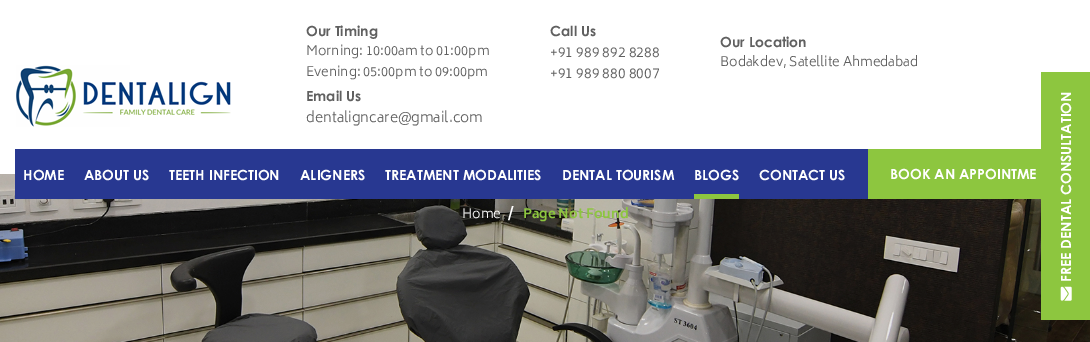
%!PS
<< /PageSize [1090 342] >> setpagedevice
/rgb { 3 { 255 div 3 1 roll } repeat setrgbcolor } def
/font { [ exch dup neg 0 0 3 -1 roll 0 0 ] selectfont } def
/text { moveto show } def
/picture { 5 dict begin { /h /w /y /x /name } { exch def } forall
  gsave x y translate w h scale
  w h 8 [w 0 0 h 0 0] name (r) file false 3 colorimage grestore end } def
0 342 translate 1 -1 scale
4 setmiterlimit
255 255 255 rgb
0 0 1090 342 rectfill
(img_01.rgb) 16 65 215 62 picture
(img_03.rgb) 0 174 1090 168 picture
40 56 145 rgb
15 149 853 50 rectfill
141 198 63 rgb
694 194 45 5 rectfill
868 149 173 50 rectfill
1041 72 49 248 rectfill
(img_02.rgb) 1060 286 12 15 picture
/CenturyGothic-Bold 14 font
96 96 96 rgb
(Our Timing) 306 36 text
/Biryani-Light 13 font
(Morning: 10:00am to 01:00pm) 306 55 text
(Evening: 05:00pm to 09:00pm) 306 76 text
/CenturyGothic-Bold 14 font
(Call Us) 550 36 text
/Biryani-Light 14 font
(+91 989 892 8288) 550 57 text
(+91 989 880 8007) 550 78 text
/CenturyGothic-Bold 14 font
(Our Location) 720 47 text
/Biryani-Light 13 font
(Bodakdev, Satellite Ahmedabad) 720 66 text
/CenturyGothic-Bold 14 font
(Email Us) 306 101 text
/Biryani-Light 14 font
(dentaligncare@gmail.com) 306 122 text
/CenturyGothic-Bold 14 font
255 255 255 rgb
(HOME) 23 180 text
(ABOUT US) 84 180 text
(TEETH INFECTION) 169 180 text
(ALIGNERS) 300 180 text
(TREATMENT MODALITIES) 385 180 text
(DENTAL TOURISM) 562 180 text
(BLOGS) 694 180 text
(CONTACT US) 759 180 text
(BOOK AN APPOINTME) 890 179 text
gsave 1071 282 translate -90 rotate 0 0 moveto (FREE DENTAL CONSULTATION) show grestore
/Biryani-Light 13 font
(Home) 462 218 text
/Biryani-Bold 13 font
(/) 508 218 text
141 198 63 rgb
(Page Not Found) 523 218 text
showpage
